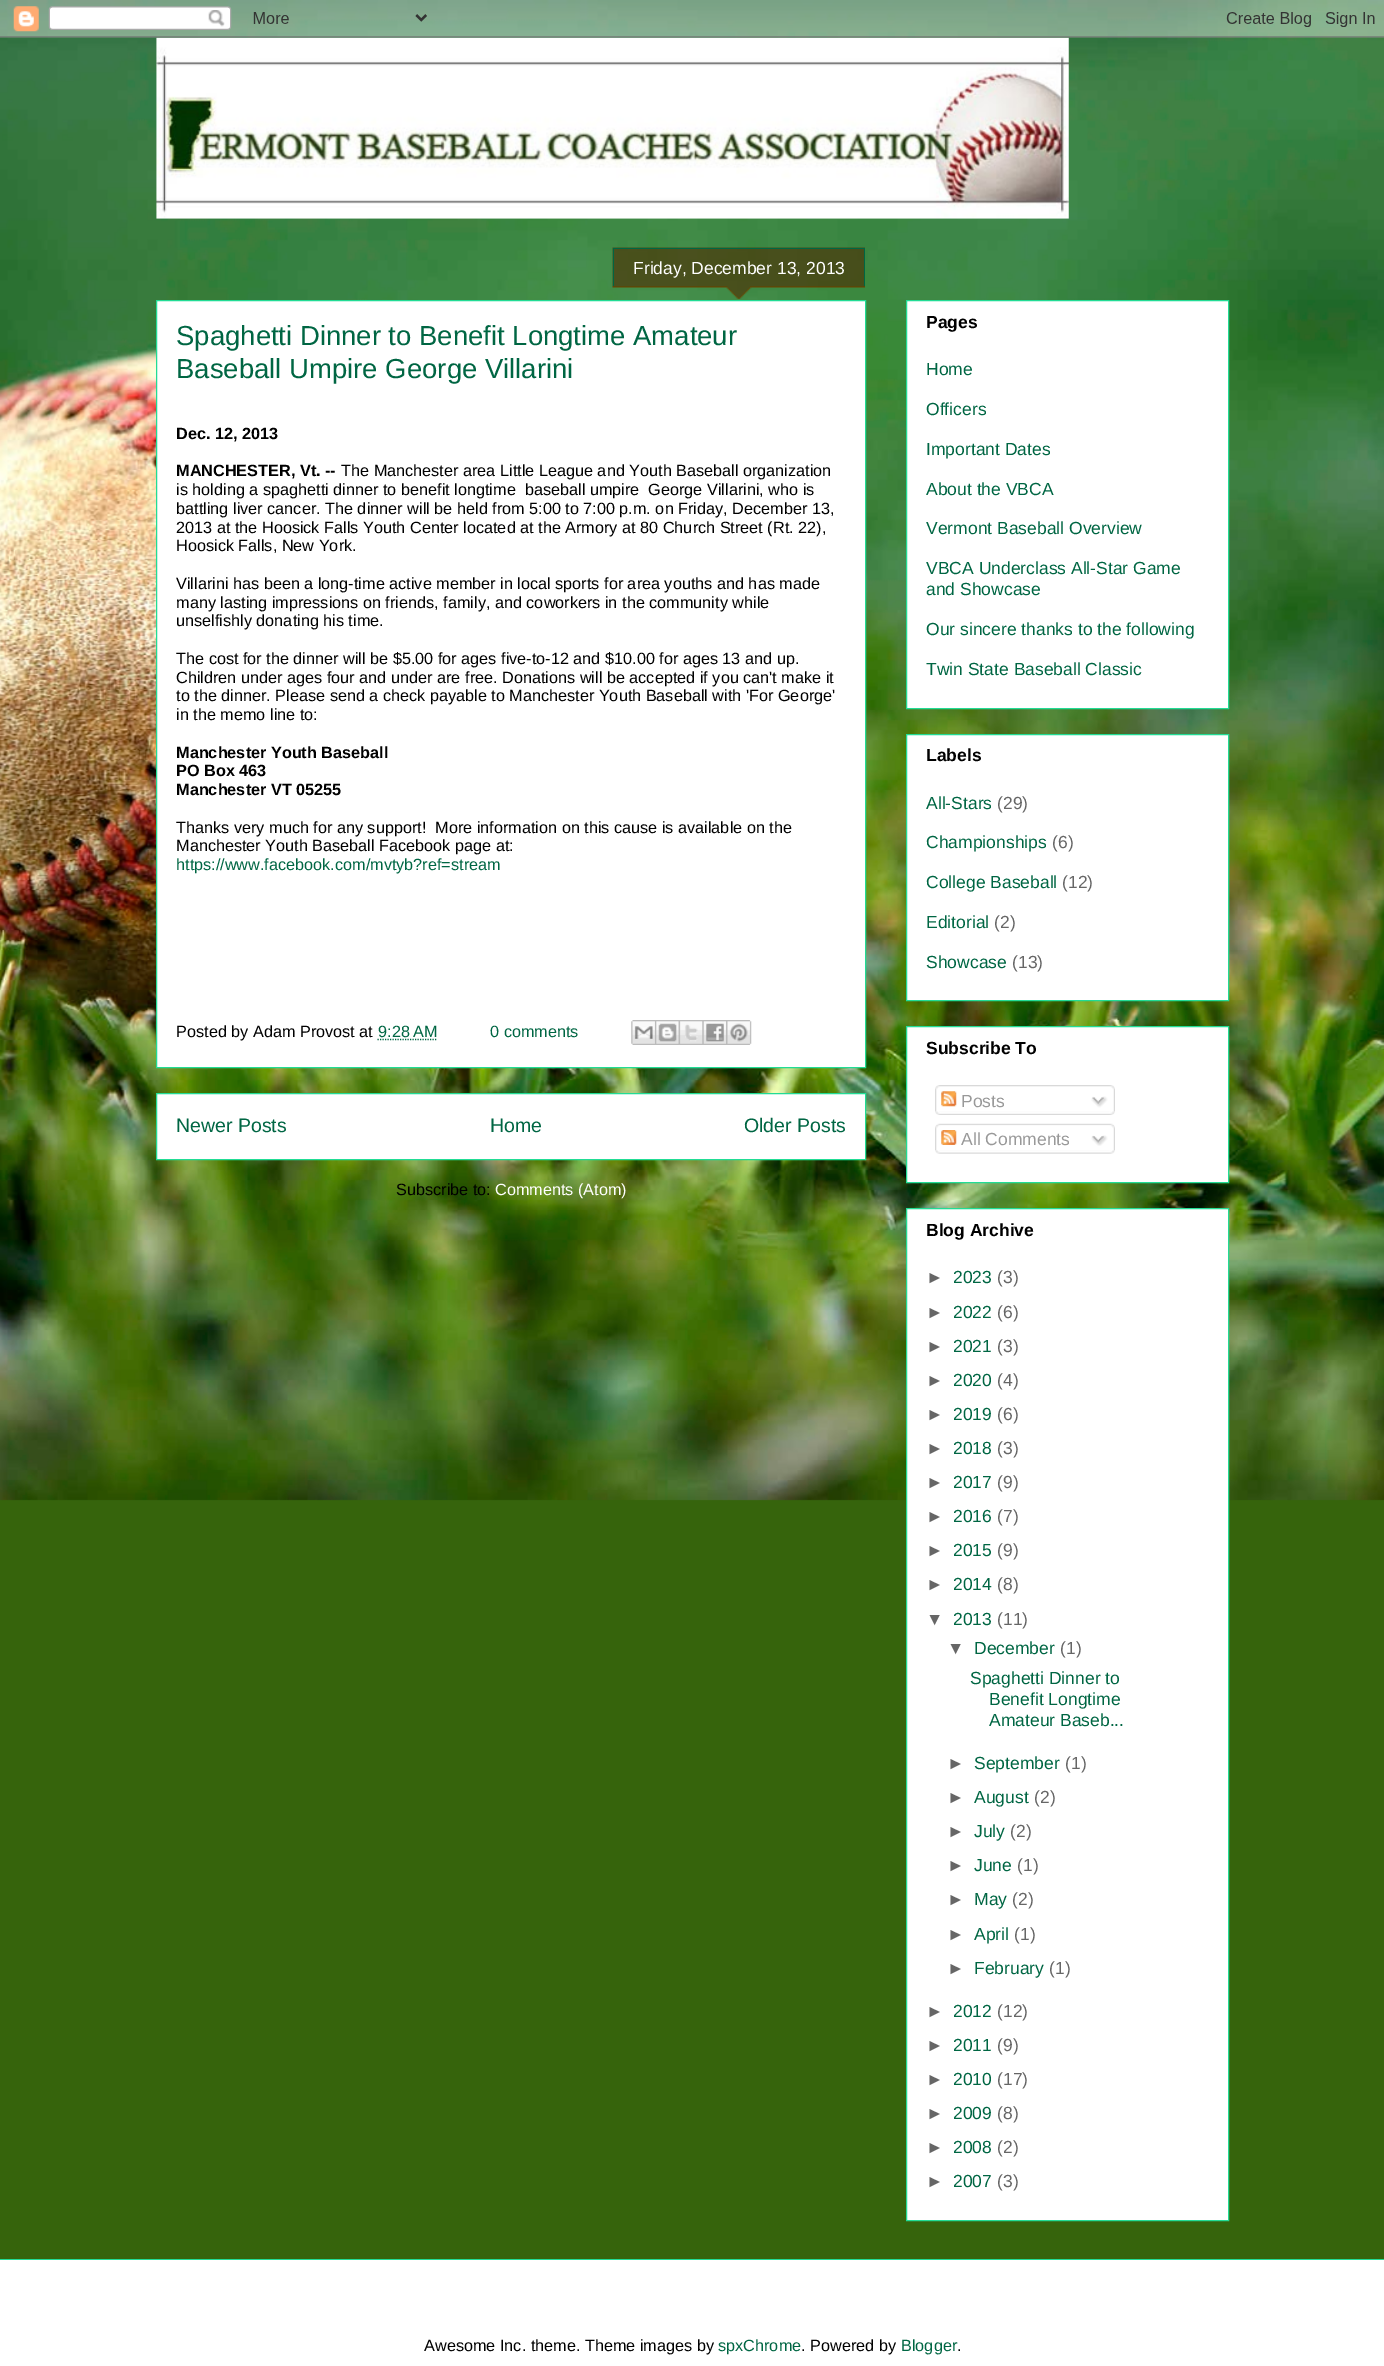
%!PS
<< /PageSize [1384 2366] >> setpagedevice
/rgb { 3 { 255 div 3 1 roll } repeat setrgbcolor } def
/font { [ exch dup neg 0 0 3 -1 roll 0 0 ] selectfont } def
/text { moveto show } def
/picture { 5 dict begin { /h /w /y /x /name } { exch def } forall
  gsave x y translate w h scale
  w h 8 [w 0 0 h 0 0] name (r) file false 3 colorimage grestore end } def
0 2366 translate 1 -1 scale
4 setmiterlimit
54 100 12 rgb
0 0 1384 2366 rectfill
(img_01.rgb) 0 0 1384 1501 picture
(img_03.rgb) 156 37 913 182 picture
(img_02.rgb) 0 0 1384 38 picture
255 255 255 rgb
156.5 300.5 moveto 709 0 rlineto 0 767 rlineto -709 0 rlineto closepath gsave fill grestore
34 220 149 rgb
stroke
(img_04.rgb) 612 247 253 52 picture
0 102 67 rgb
613 248 252 1 rectfill
864 249 1 37 rectfill
613 249 1 37 rectfill
1.2 setlinewidth
[1.25 1.25] 0 setdash
377.5 1039.5 moveto 59.5 0 rlineto stroke
(img_05.rgb) 631 1020 24 25 picture
(img_06.rgb) 655 1020 24 25 picture
(img_07.rgb) 678 1020 25 25 picture
(img_08.rgb) 702 1020 25 25 picture
(img_09.rgb) 726 1020 26 25 picture
255 255 255 rgb
156.5 1093.5 moveto 709 0 rlineto 0 66 rlineto -709 0 rlineto closepath gsave fill grestore
34 220 149 rgb
1 setlinewidth
[] 0 setdash
stroke
255 255 255 rgb
906.5 300.5 moveto 322 0 rlineto 0 408 rlineto -322 0 rlineto closepath gsave fill grestore
34 220 149 rgb
stroke
255 255 255 rgb
906.5 734.5 moveto 322 0 rlineto 0 266 rlineto -322 0 rlineto closepath gsave fill grestore
34 220 149 rgb
stroke
255 255 255 rgb
906.5 1026.5 moveto 322 0 rlineto 0 156 rlineto -322 0 rlineto closepath gsave fill grestore
34 220 149 rgb
stroke
(img_10.rgb) 935 1085 180 27 picture
(img_11.rgb) 941 1091 16 16 picture
(img_12.rgb) 1091 1096 17 12 picture
(img_13.rgb) 935 1111 180 4 picture
(img_14.rgb) 935 1123 180 27 picture
(img_15.rgb) 941 1130 16 15 picture
(img_16.rgb) 1091 1135 17 11 picture
(img_17.rgb) 935 1150 180 4 picture
255 255 255 rgb
906.5 1208.5 moveto 322 0 rlineto 0 1012 rlineto -322 0 rlineto closepath gsave fill grestore
34 220 149 rgb
stroke
255 255 255 rgb
0 2260 1384 106 rectfill
34 220 149 rgb
0 2259 1384 1 rectfill
/LiberationSans-Regular 17.5 font
255 255 255 rgb
(Friday, December 13, 2013) 633 274 text
/LiberationSans-Regular 27.5 font
0 102 67 rgb
(Spaghetti Dinner to Benefit Longtime Amateur) 176 345 text
(Baseball Umpire George Villarini) 176 378 text
/LiberationSans-Bold 16.25 font
0 0 0 rgb
(Dec. 12, 2013) 176 439 text
(MANCHESTER, Vt. --) 176 476 text
/LiberationSans-Regular 16.25 font
(The Manchester area Little League and Youth Baseball organization) 341 476 text
(is holding a spaghetti dinner to benefit longtime  baseball umpire  George Villarini, who is) 176 495 text
(battling liver cancer. The dinner will be held from 5:00 to 7:00 p.m. on Friday, December 13,) 176 514 text
(2013 at the Hoosick Falls Youth Center located at the Armory at 80 Church Street \(Rt. 22\),) 176 533 text
(Hoosick Falls, New York.) 176 551 text
(Villarini has been a long-time active member in local sports for area youths and has made) 176 589 text
(many lasting impressions on friends, family, and coworkers in the community while) 176 608 text
(unselfishly donating his time.) 176 626 text
(The cost for the dinner will be $5.00 for ages five-to-12 and $10.00 for ages 13 and up.) 176 664 text
(Children under ages four and under are free. Donations will be accepted if you can't make it) 176 683 text
(to the dinner. Please send a check payable to Manchester Youth Baseball with 'For George') 176 701 text
(in the memo line to:) 176 720 text
/LiberationSans-Bold 16.25 font
(Manchester Youth Baseball) 176 758 text
(PO Box 463) 176 776 text
(Manchester VT 05255) 176 795 text
/LiberationSans-Regular 16.25 font
(Thanks very much for any support!  More information on this cause is available on the) 176 833 text
(Manchester Youth Baseball Facebook page at:) 176 851 text
0 102 67 rgb
(https://www.facebook.com/mvtyb?ref=stream) 176 870 text
0 0 0 rgb
(Posted by Adam Provost at) 176 1037 text
0 102 67 rgb
(9:28 AM) 378 1037 text
(0 comments) 490 1037 text
/LiberationSans-Regular 19.5 font
(Newer Posts) 176 1132 text
(Home) 490 1132 text
(Older Posts) 744 1132 text
/LiberationSans-Regular 16.25 font
0 0 0 rgb
(Subscribe to:) 396 1195 text
255 255 255 rgb
(Comments \(Atom\)) 495 1195 text
/LiberationSans-Bold 17.5 font
0 0 0 rgb
(Pages) 926 328 text
/LiberationSans-Regular 17.5 font
0 102 67 rgb
(Home) 926 375 text
(Officers) 926 415 text
(Important Dates) 926 455 text
(About the VBCA) 926 495 text
(Vermont Baseball Overview) 926 534 text
(VBCA Underclass All-Star Game) 926 574 text
(and Showcase) 926 595 text
(Our sincere thanks to the following) 926 635 text
(Twin State Baseball Classic) 926 675 text
/LiberationSans-Bold 17.5 font
0 0 0 rgb
(Labels) 926 761 text
/LiberationSans-Regular 17.5 font
0 102 67 rgb
(All-Stars) 926 809 text
102 102 102 rgb
(\(29\)) 997 809 text
0 102 67 rgb
(Championships) 926 848 text
102 102 102 rgb
(\(6\)) 1052 848 text
0 102 67 rgb
(College Baseball) 926 888 text
102 102 102 rgb
(\(12\)) 1062 888 text
0 102 67 rgb
(Editorial) 926 928 text
102 102 102 rgb
(\(2\)) 994 928 text
0 102 67 rgb
(Showcase) 926 968 text
102 102 102 rgb
(\(13\)) 1012 968 text
/LiberationSans-Bold 17.5 font
0 0 0 rgb
(Subscribe To) 926 1054 text
/LiberationSans-Regular 17.5 font
153 153 153 rgb
(Posts) 961 1107 text
(All Comments) 961 1145 text
/LiberationSans-Bold 17.5 font
0 0 0 rgb
(Blog Archive) 926 1236 text
/LiberationSans-Regular 17.5 font
102 102 102 rgb
(►) 926 1283 text
0 102 67 rgb
(2023) 953 1283 text
102 102 102 rgb
(\(3\)) 997 1283 text
(►) 926 1318 text
0 102 67 rgb
(2022) 953 1318 text
102 102 102 rgb
(\(6\)) 997 1318 text
(►) 926 1352 text
0 102 67 rgb
(2021) 953 1352 text
102 102 102 rgb
(\(3\)) 997 1352 text
(►) 926 1386 text
0 102 67 rgb
(2020) 953 1386 text
102 102 102 rgb
(\(4\)) 997 1386 text
(►) 926 1420 text
0 102 67 rgb
(2019) 953 1420 text
102 102 102 rgb
(\(6\)) 997 1420 text
(►) 926 1454 text
0 102 67 rgb
(2018) 953 1454 text
102 102 102 rgb
(\(3\)) 997 1454 text
(►) 926 1488 text
0 102 67 rgb
(2017) 953 1488 text
102 102 102 rgb
(\(9\)) 997 1488 text
(►) 926 1522 text
0 102 67 rgb
(2016) 953 1522 text
102 102 102 rgb
(\(7\)) 997 1522 text
(►) 926 1556 text
0 102 67 rgb
(2015) 953 1556 text
102 102 102 rgb
(\(9\)) 997 1556 text
(►) 926 1590 text
0 102 67 rgb
(2014) 953 1590 text
102 102 102 rgb
(\(8\)) 997 1590 text
(▼) 926 1625 text
0 102 67 rgb
(2013) 953 1625 text
102 102 102 rgb
(\(11\)) 997 1625 text
(▼) 947 1654 text
0 102 67 rgb
(December) 974 1654 text
102 102 102 rgb
(\(1\)) 1060 1654 text
0 102 67 rgb
(Spaghetti Dinner to) 970 1684 text
(Benefit Longtime) 989 1705 text
(Amateur Baseb...) 989 1726 text
102 102 102 rgb
(►) 947 1769 text
0 102 67 rgb
(September) 974 1769 text
102 102 102 rgb
(\(1\)) 1065 1769 text
(►) 947 1803 text
0 102 67 rgb
(August) 974 1803 text
102 102 102 rgb
(\(2\)) 1034 1803 text
(►) 947 1837 text
0 102 67 rgb
(July) 974 1837 text
102 102 102 rgb
(\(2\)) 1010 1837 text
(►) 947 1871 text
0 102 67 rgb
(June) 974 1871 text
102 102 102 rgb
(\(1\)) 1017 1871 text
(►) 947 1905 text
0 102 67 rgb
(May) 974 1905 text
102 102 102 rgb
(\(2\)) 1012 1905 text
(►) 947 1940 text
0 102 67 rgb
(April) 974 1940 text
102 102 102 rgb
(\(1\)) 1014 1940 text
(►) 947 1974 text
0 102 67 rgb
(February) 974 1974 text
102 102 102 rgb
(\(1\)) 1049 1974 text
(►) 926 2017 text
0 102 67 rgb
(2012) 953 2017 text
102 102 102 rgb
(\(12\)) 997 2017 text
(►) 926 2051 text
0 102 67 rgb
(2011) 953 2051 text
102 102 102 rgb
(\(9\)) 997 2051 text
(►) 926 2085 text
0 102 67 rgb
(2010) 953 2085 text
102 102 102 rgb
(\(17\)) 997 2085 text
(►) 926 2119 text
0 102 67 rgb
(2009) 953 2119 text
102 102 102 rgb
(\(8\)) 997 2119 text
(►) 926 2153 text
0 102 67 rgb
(2008) 953 2153 text
102 102 102 rgb
(\(2\)) 997 2153 text
(►) 926 2187 text
0 102 67 rgb
(2007) 953 2187 text
102 102 102 rgb
(\(3\)) 997 2187 text
/LiberationSans-Regular 16.25 font
0 0 0 rgb
(Awesome Inc. theme. Theme images by) 424 2351 text
0 102 67 rgb
(spxChrome) 718 2351 text
0 0 0 rgb
(. Powered by) 801 2351 text
0 102 67 rgb
(Blogger) 901 2351 text
0 0 0 rgb
(.) 957 2351 text
showpage
